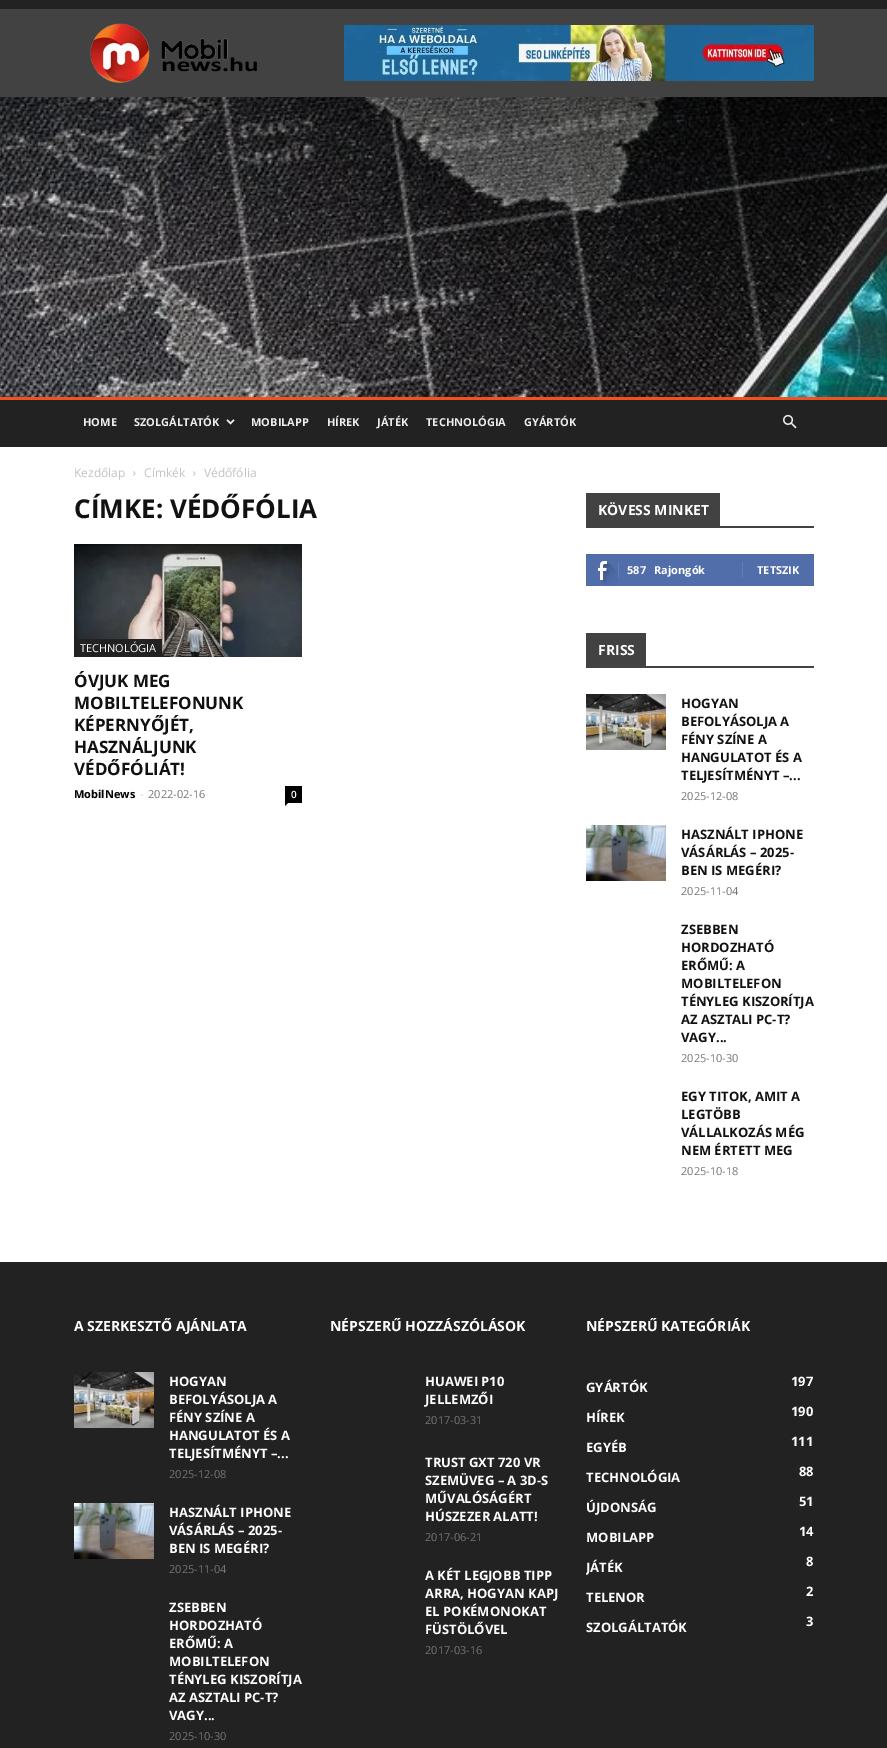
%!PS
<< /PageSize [887 1748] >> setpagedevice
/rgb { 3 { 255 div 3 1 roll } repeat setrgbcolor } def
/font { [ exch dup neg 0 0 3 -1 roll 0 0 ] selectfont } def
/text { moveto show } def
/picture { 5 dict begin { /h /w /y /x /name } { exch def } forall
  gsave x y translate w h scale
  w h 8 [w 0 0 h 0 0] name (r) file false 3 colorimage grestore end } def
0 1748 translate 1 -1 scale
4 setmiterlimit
255 255 255 rgb
0 0 887 1748 rectfill
(img_01.rgb) 0 97 887 300 picture
34 34 34 rgb
0 0 887 9 rectfill
66 66 66 rgb
0 9 887 88 rectfill
(img_02.rgb) 90 23 167 60 picture
(img_03.rgb) 344 25 470 56 picture
34 34 34 rgb
0 400 887 47 rectfill
244 81 30 rgb
0 397 887 3 rectfill
(img_04.rgb) 226 419 9 6 picture
(img_05.rgb) 783 414 14 15 picture
(img_06.rgb) 133 471 3 5 picture
(img_06.rgb) 193 471 3 5 picture
(img_07.rgb) 74 544 228 113 picture
34 34 34 rgb
74 639 88 18 rectfill
0 0 0 rgb
285 786 17 17 rectfill
285 803 moveto 3 0 rlineto -3 3 rlineto closepath fill
66 66 66 rgb
586 526 228 2 rectfill
586 493 134 33 rectfill
81 110 171 rgb
586 554 228 32 rectfill
(img_08.rgb) 598 561 20 25 picture
98 125 179 rgb
618 562 1 16 rectfill
742 562 1 16 rectfill
66 66 66 rgb
586 666 228 2 rectfill
586 633 60 33 rectfill
(img_09.rgb) 586 694 80 56 picture
(img_10.rgb) 586 825 80 56 picture
34 34 34 rgb
0 1262 887 486 rectfill
(img_09.rgb) 74 1372 80 56 picture
(img_10.rgb) 74 1503 80 56 picture
/OpenSans-Bold 11 font
237 237 237 rgb
(HOME) 83 426 text
(SZOLGÁLTATÓK) 134 426 text
(MOBILAPP) 251 426 text
(HÍREK) 327 426 text
(JÁTÉK) 377 426 text
(TECHNOLÓGIA) 426 426 text
(GYÁRTÓK) 524 426 text
/OpenSans-Regular 12 font
195 195 195 rgb
(Kezdőlap) 74 477 text
(Címkék) 144 477 text
(Védőfólia) 204 477 text
/OpenSans-Bold 26 font
17 17 17 rgb
(CÍMKE: VÉDŐFÓLIA) 74 518 text
/OpenSans-Regular 11 font
255 255 255 rgb
(TECHNOLÓGIA) 80 652 text
/OpenSans-Bold 17 font
17 17 17 rgb
(ÓVJUK MEG) 74 687 text
(MOBILTELEFONUNK) 74 709 text
(KÉPERNYŐJÉT,) 74 731 text
(HASZNÁLJUNK) 74 753 text
(VÉDŐFÓLIÁT!) 74 775 text
/OpenSans-Bold 11 font
0 0 0 rgb
(MobilNews) 74 798 text
/OpenSans-Regular 11 font
204 204 204 rgb
(-) 140 798 text
118 118 118 rgb
(2022-02-16) 148 798 text
/OpenSans-SemiBold 10 font
255 255 255 rgb
(0) 291 798 text
/OpenSans-Bold 14 font
(KÖVESS MINKET) 598 515 text
/OpenSans-Bold 11 font
(587) 627 574 text
(Rajongók) 654 574 text
(TETSZIK) 757 574 text
/OpenSans-Bold 14 font
(FRISS) 598 655 text
/OpenSans-Bold 13 font
17 17 17 rgb
(HOGYAN) 681 708 text
(BEFOLYÁSOLJA A) 681 726 text
(FÉNY SZÍNE A) 681 744 text
(HANGULATOT ÉS A) 681 762 text
(TELJESÍTMÉNYT –...) 681 780 text
/OpenSans-Regular 11 font
118 118 118 rgb
(2025-12-08) 681 800 text
/OpenSans-Bold 13 font
17 17 17 rgb
(HASZNÁLT IPHONE) 681 839 text
(VÁSÁRLÁS – 2025-) 681 857 text
(BEN IS MEGÉRI?) 681 875 text
/OpenSans-Regular 11 font
118 118 118 rgb
(2025-11-04) 681 895 text
/OpenSans-Bold 13 font
17 17 17 rgb
(ZSEBBEN) 681 934 text
(HORDOZHATÓ) 681 952 text
(ERŐMŰ: A) 681 970 text
(MOBILTELEFON) 681 988 text
(TÉNYLEG KISZORÍTJA) 681 1006 text
(AZ ASZTALI PC-T?) 681 1024 text
(VAGY...) 681 1042 text
/OpenSans-Regular 11 font
118 118 118 rgb
(2025-10-30) 681 1062 text
/OpenSans-Bold 13 font
17 17 17 rgb
(EGY TITOK, AMIT A) 681 1101 text
(LEGTÖBB) 681 1119 text
(VÁLLALKOZÁS MÉG) 681 1137 text
(NEM ÉRTETT MEG) 681 1155 text
/OpenSans-Regular 11 font
118 118 118 rgb
(2025-10-18) 681 1175 text
/OpenSans-Bold 14 font
255 255 255 rgb
(A SZERKESZTŐ AJÁNLATA) 74 1331 text
/OpenSans-Bold 13 font
(HOGYAN) 169 1386 text
(BEFOLYÁSOLJA A) 169 1404 text
(FÉNY SZÍNE A) 169 1422 text
(HANGULATOT ÉS A) 169 1440 text
(TELJESÍTMÉNYT –...) 169 1458 text
/OpenSans-Regular 11 font
118 118 118 rgb
(2025-12-08) 169 1478 text
/OpenSans-Bold 13 font
255 255 255 rgb
(HASZNÁLT IPHONE) 169 1517 text
(VÁSÁRLÁS – 2025-) 169 1535 text
(BEN IS MEGÉRI?) 169 1553 text
/OpenSans-Regular 11 font
118 118 118 rgb
(2025-11-04) 169 1573 text
/OpenSans-Bold 13 font
255 255 255 rgb
(ZSEBBEN) 169 1612 text
(HORDOZHATÓ) 169 1630 text
(ERŐMŰ: A) 169 1648 text
(MOBILTELEFON) 169 1666 text
(TÉNYLEG KISZORÍTJA) 169 1684 text
(AZ ASZTALI PC-T?) 169 1702 text
(VAGY...) 169 1720 text
/OpenSans-Regular 11 font
118 118 118 rgb
(2025-10-30) 169 1740 text
/OpenSans-Bold 14 font
255 255 255 rgb
(NÉPSZERŰ HOZZÁSZÓLÁSOK) 330 1331 text
/OpenSans-Bold 13 font
(HUAWEI P10) 425 1386 text
(JELLEMZŐI) 425 1404 text
/OpenSans-Regular 11 font
118 118 118 rgb
(2017-03-31) 425 1424 text
/OpenSans-Bold 13 font
255 255 255 rgb
(TRUST GXT 720 VR) 425 1467 text
(SZEMÜVEG – A 3D-S) 425 1485 text
(MŰVALÓSÁGÉRT) 425 1503 text
(HÚSZEZER ALATT!) 425 1521 text
/OpenSans-Regular 11 font
118 118 118 rgb
(2017-06-21) 425 1541 text
/OpenSans-Bold 13 font
255 255 255 rgb
(A KÉT LEGJOBB TIPP) 425 1580 text
(ARRA, HOGYAN KAPJ) 425 1598 text
(EL POKÉMONOKAT) 425 1616 text
(FÜSTÖLŐVEL) 425 1634 text
/OpenSans-Regular 11 font
118 118 118 rgb
(2017-03-16) 425 1654 text
/OpenSans-Bold 14 font
255 255 255 rgb
(NÉPSZERŰ KATEGÓRIÁK) 586 1331 text
/OpenSans-Bold 13 font
(GYÁRTÓK) 586 1392 text
(197) 791 1386 text
(HÍREK) 586 1422 text
(190) 791 1416 text
(EGYÉB) 586 1452 text
(111) 791 1446 text
gsave
586 1307 228 335 rectclip
(TECHNOLÓGIA) 586 1482 text
grestore
(88) 799 1476 text
(ÚJDONSÁG) 586 1512 text
(51) 799 1506 text
(14) 799 1536 text
(MOBILAPP) 586 1542 text
gsave
586 1307 228 335 rectclip
(JÁTÉK) 586 1572 text
grestore
(8) 806 1566 text
(2) 806 1596 text
gsave
586 1307 228 335 rectclip
(TELENOR) 586 1602 text
grestore
(SZOLGÁLTATÓK) 586 1632 text
(3) 806 1626 text
showpage
